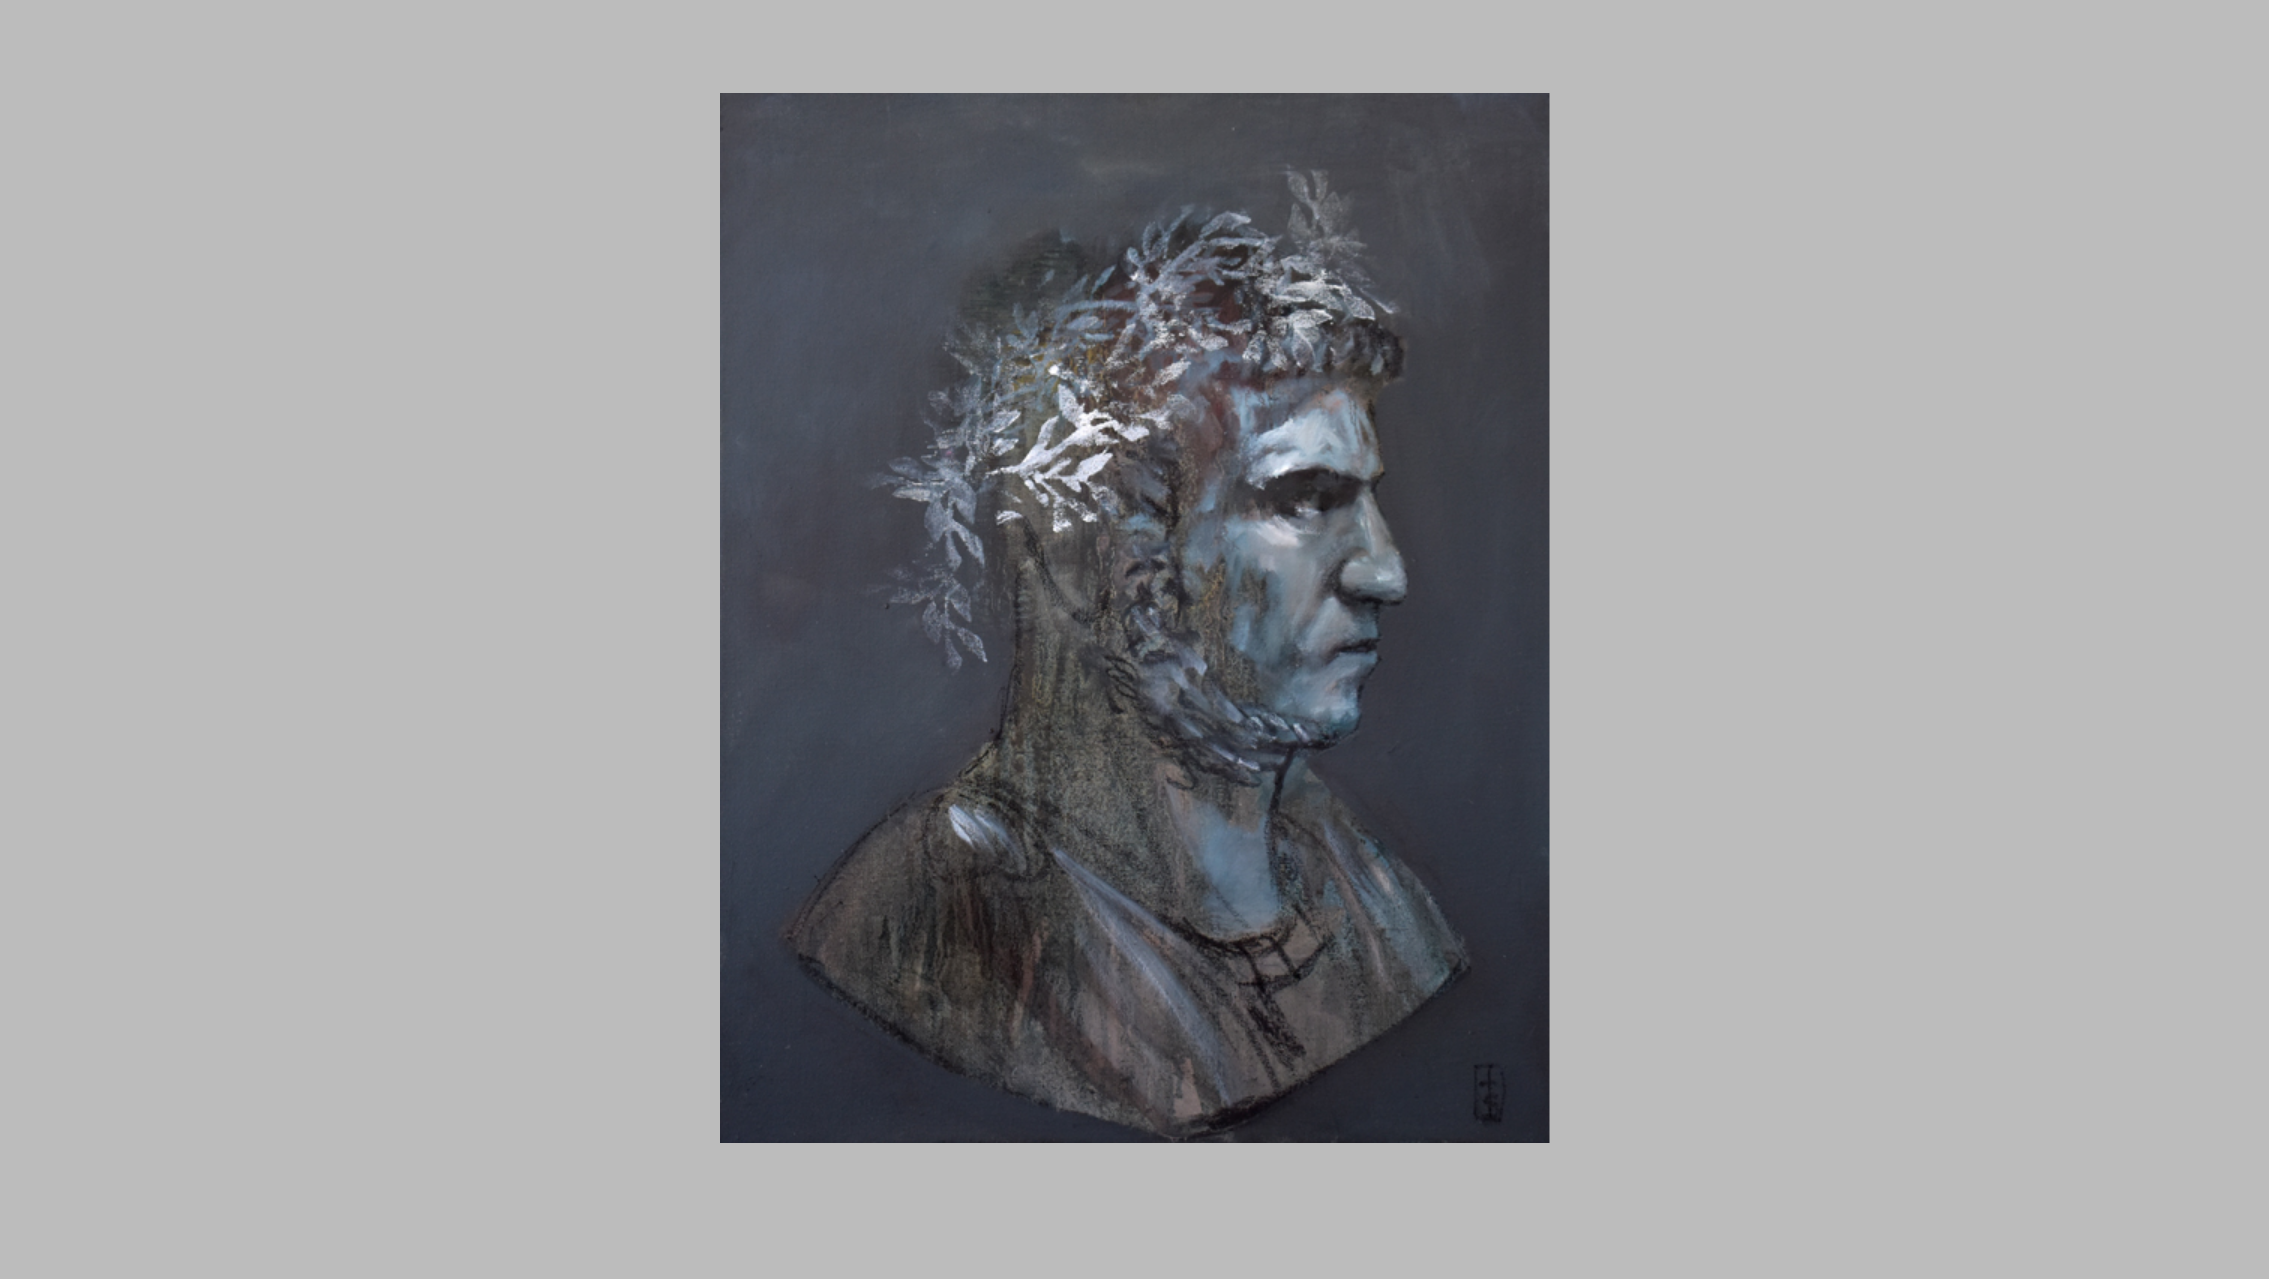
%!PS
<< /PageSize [2269 1279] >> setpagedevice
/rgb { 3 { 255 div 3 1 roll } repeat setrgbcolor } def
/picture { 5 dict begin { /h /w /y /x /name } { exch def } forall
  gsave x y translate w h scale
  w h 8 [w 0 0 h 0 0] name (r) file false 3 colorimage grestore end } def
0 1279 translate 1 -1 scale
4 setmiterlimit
188 188 188 rgb
0 0 2269 1279 rectfill
(img_01.rgb) 720 93 830 1050 picture
showpage
